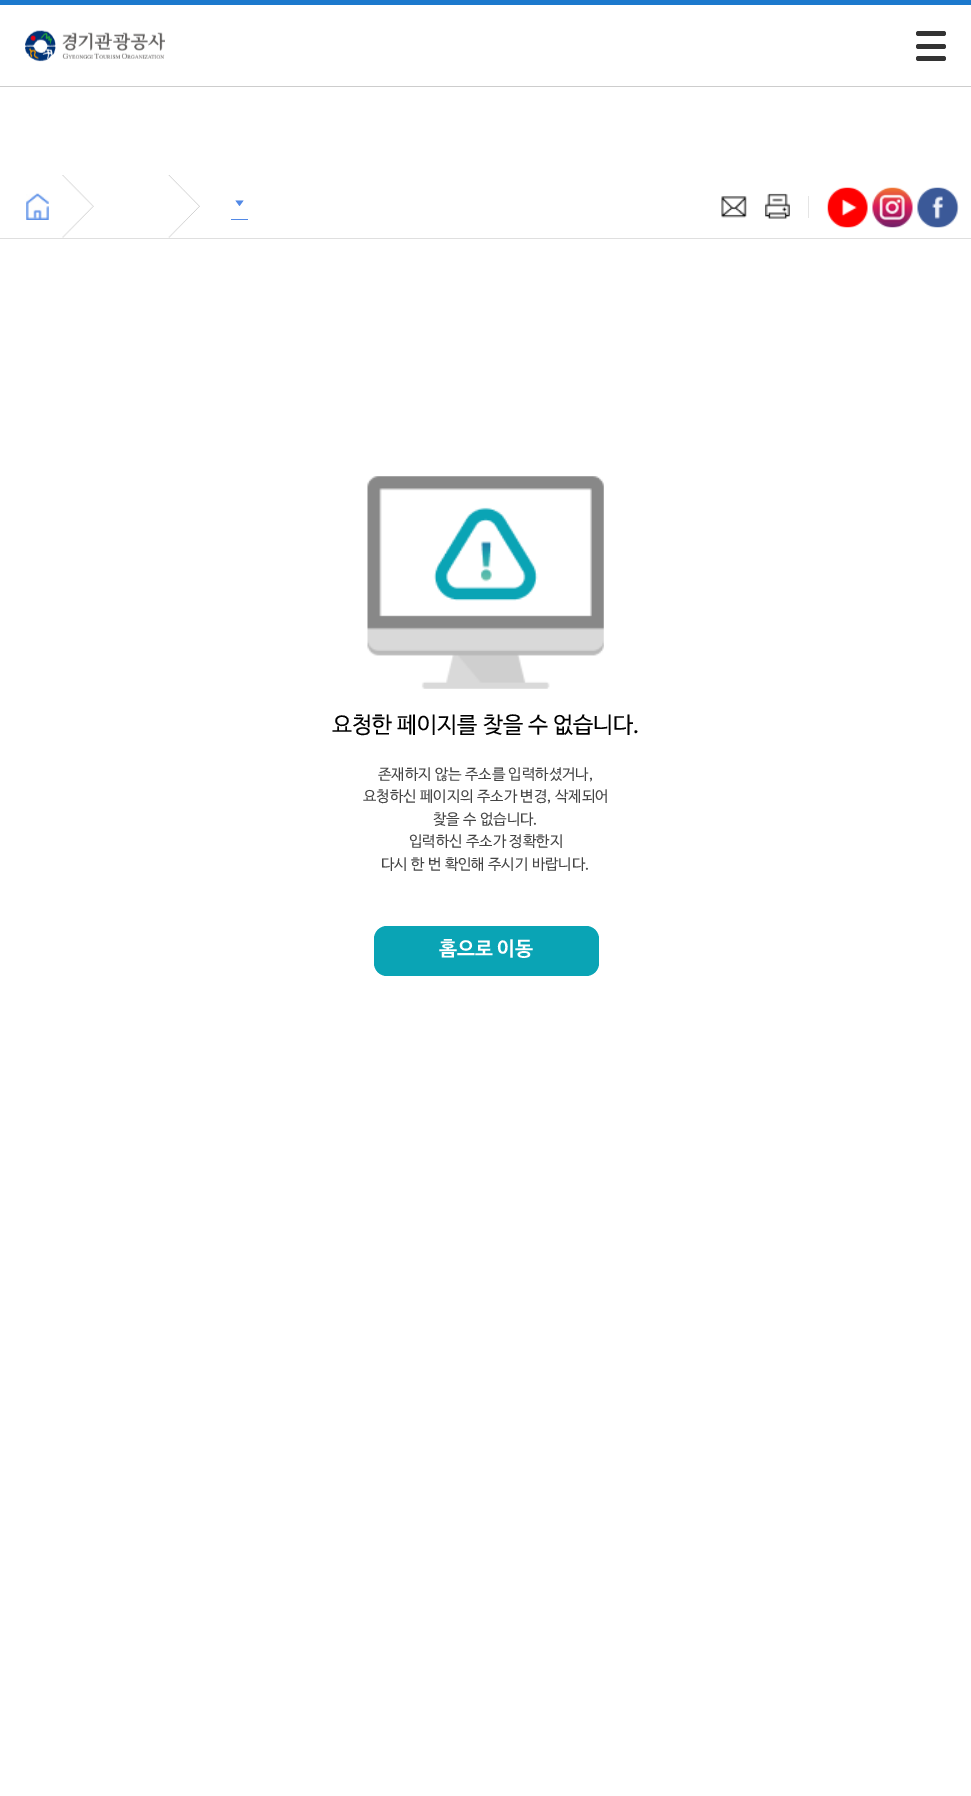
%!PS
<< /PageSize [971 1796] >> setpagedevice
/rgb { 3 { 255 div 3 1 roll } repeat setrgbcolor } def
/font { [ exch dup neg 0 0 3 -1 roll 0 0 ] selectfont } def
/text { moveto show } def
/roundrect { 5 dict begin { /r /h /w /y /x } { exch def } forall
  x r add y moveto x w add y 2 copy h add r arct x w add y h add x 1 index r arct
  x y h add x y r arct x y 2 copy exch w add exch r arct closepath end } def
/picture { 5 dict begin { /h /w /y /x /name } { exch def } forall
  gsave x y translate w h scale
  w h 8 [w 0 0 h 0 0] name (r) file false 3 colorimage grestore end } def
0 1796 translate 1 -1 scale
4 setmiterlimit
255 255 255 rgb
0 0 971 1796 rectfill
28 121 205 rgb
0 0 971 5 rectfill
205 205 205 rgb
0 86 971 1 rectfill
(img_01.rgb) 25 30 140 32 picture
51 51 51 rgb
916 31 30 5 2.5 roundrect fill
916 44 30 5 2.5 roundrect fill
916 56 30 5 2.5 roundrect fill
223 223 223 rgb
0 238 971 1 rectfill
(img_02.rgb) 26 193 23 27 picture
(img_03.rgb) 62 175 32 63 picture
(img_04.rgb) 168 175 32 63 picture
82 137 230 rgb
243.5 200.5 moveto -4 5.5 rlineto -4 -5.5 rlineto closepath fill
231 219 17 1 rectfill
(img_05.rgb) 721 196 26 22 picture
(img_06.rgb) 765 193 25 26 picture
229 229 229 rgb
808 196 1 22 rectfill
(img_07.rgb) 827 187 41 41 picture
(img_08.rgb) 872 187 41 41 picture
(img_09.rgb) 917 187 42 41 picture
(img_10.rgb) 367 476 237 213 picture
10 164 181 rgb
374 926 225 50 13 roundrect fill
/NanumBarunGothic-Regular 22.5 font
0 0 0 rgb
(요청한 페이지를 찾을 수 없습니다.) 332 732 text
/NanumBarunGothic-Regular 15 font
68 68 68 rgb
(존재하지 않는 주소를 입력하셨거나,) 378 779 text
(요청하신 페이지의 주소가 변경, 삭제되어) 363 801 text
(찾을 수 없습니다.) 433 824 text
(입력하신 주소가 정확한지) 409 846 text
(다시 한 번 확인해 주시기 바랍니다.) 381 869 text
/NanumBarunGothic-Bold 20 font
255 255 255 rgb
(홈으로 이동) 439 955 text
showpage
